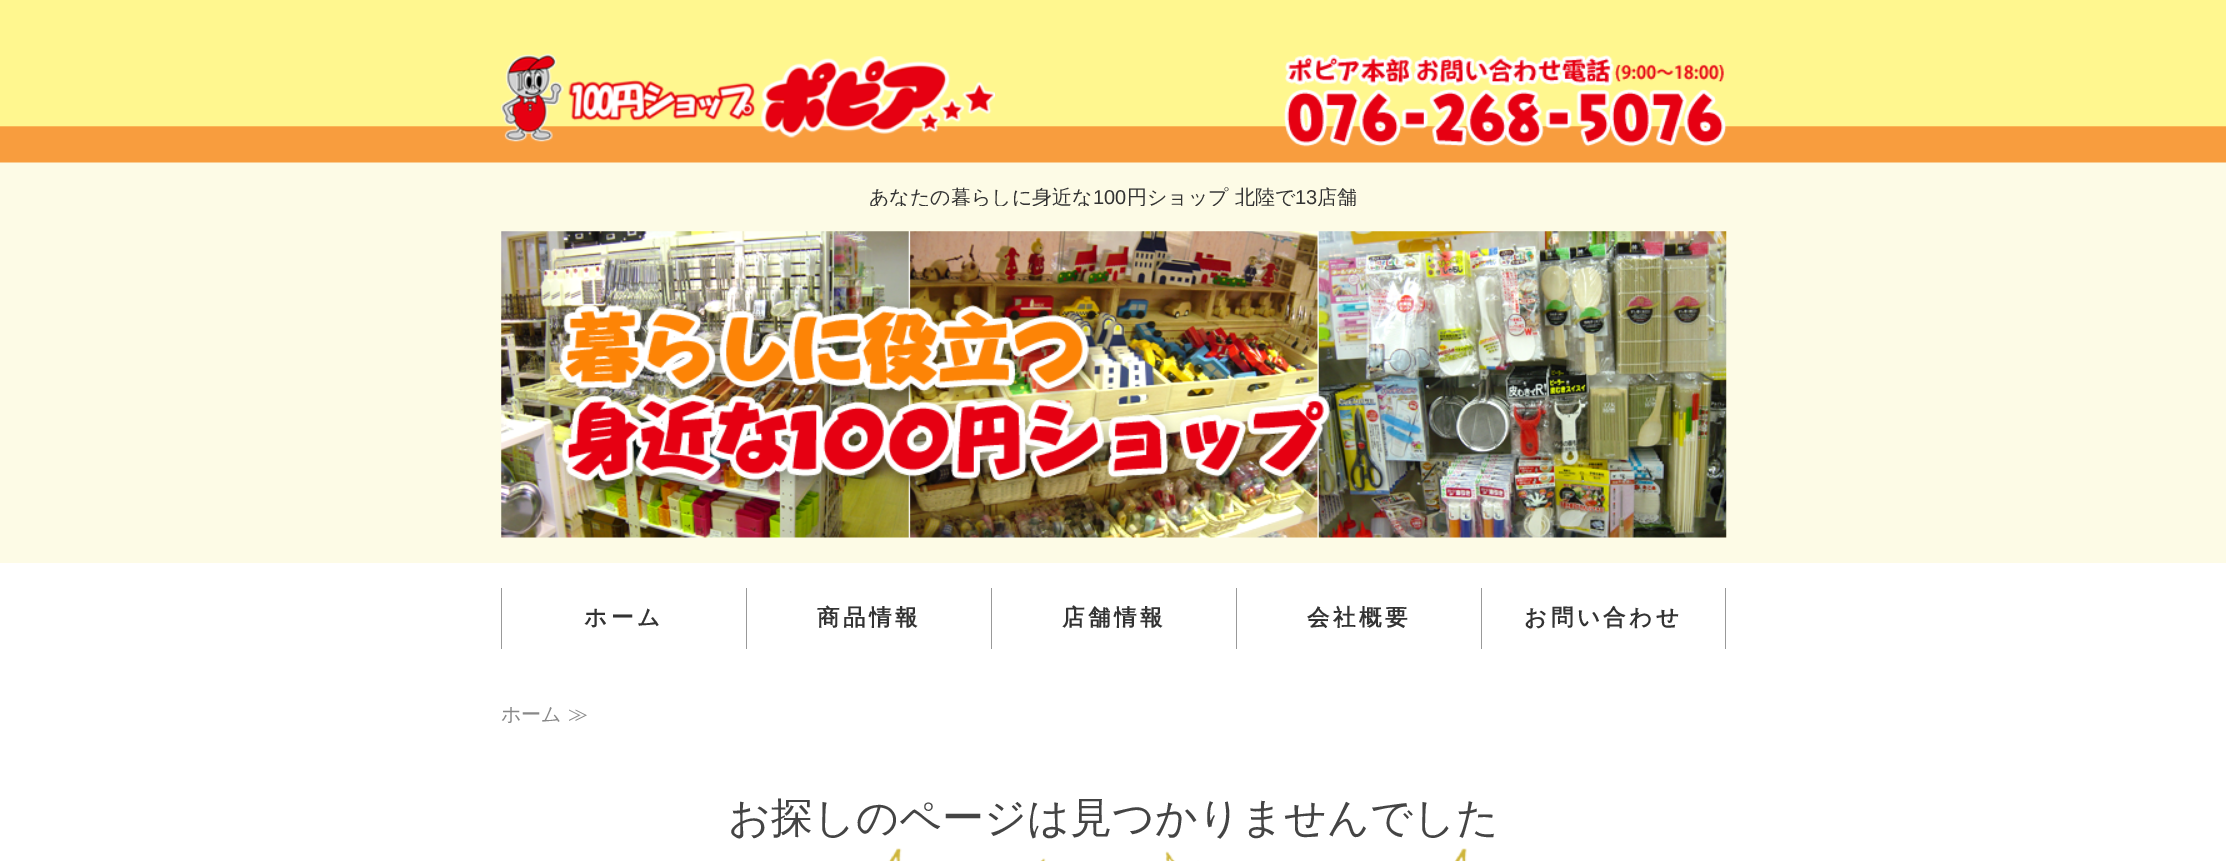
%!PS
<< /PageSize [2226 861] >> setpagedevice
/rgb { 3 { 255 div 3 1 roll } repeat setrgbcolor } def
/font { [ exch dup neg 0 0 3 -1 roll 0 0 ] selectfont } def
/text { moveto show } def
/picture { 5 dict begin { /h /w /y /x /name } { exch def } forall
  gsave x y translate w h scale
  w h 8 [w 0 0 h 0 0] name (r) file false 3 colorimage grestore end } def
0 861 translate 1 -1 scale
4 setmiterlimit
255 255 255 rgb
0 0 2226 861 rectfill
253 251 230 rgb
0 162 2226 44 rectfill
(img_01.rgb) 0 0 2226 163 picture
(img_02.rgb) 1283 53 444 94 picture
(img_03.rgb) 501 53 494 89 picture
153 153 153 rgb
501 588 1 61 rectfill
746 588 1 61 rectfill
991 588 1 61 rectfill
1236 588 1 61 rectfill
1725 588 1 61 rectfill
1481 588 1 61 rectfill
(img_05.rgb) 888 848 579 13 picture
/WenQuanYiZenHei-Medium 20 font
51 51 51 rgb
(あなたの暮らしに身近な) 869 204 text
/LiberationSans-Regular 20 font
(100) 1093 204 text
/WenQuanYiZenHei-Medium 20 font
(円ショップ 北陸で) 1127 204 text
/LiberationSans-Regular 20 font
(13) 1295 204 text
/WenQuanYiZenHei-Medium 20 font
(店舗) 1317 204 text
253 251 230 rgb
0 206 2226 357 rectfill
(img_04.rgb) 501 231 1226 307 picture
/WenQuanYiZenHei-Bold 22.5 font
51 51 51 rgb
584 625 moveto 3.5 0 (ホーム) ashow
817 625 moveto 3.5 0 (商品情報) ashow
1062 625 moveto 3.5 0 (店舗情報) ashow
1307 625 moveto 3.5 0 (会社概要) ashow
1524 625 moveto 3.5 0 (お問い合わせ) ashow
/WenQuanYiZenHei-Medium 20 font
136 136 136 rgb
(ホーム ≫) 501 721 text
/WenQuanYiZenHei-Medium 42 font
68 68 68 rgb
(お探しのページは見つかりませんでした) 728 832 text
showpage
